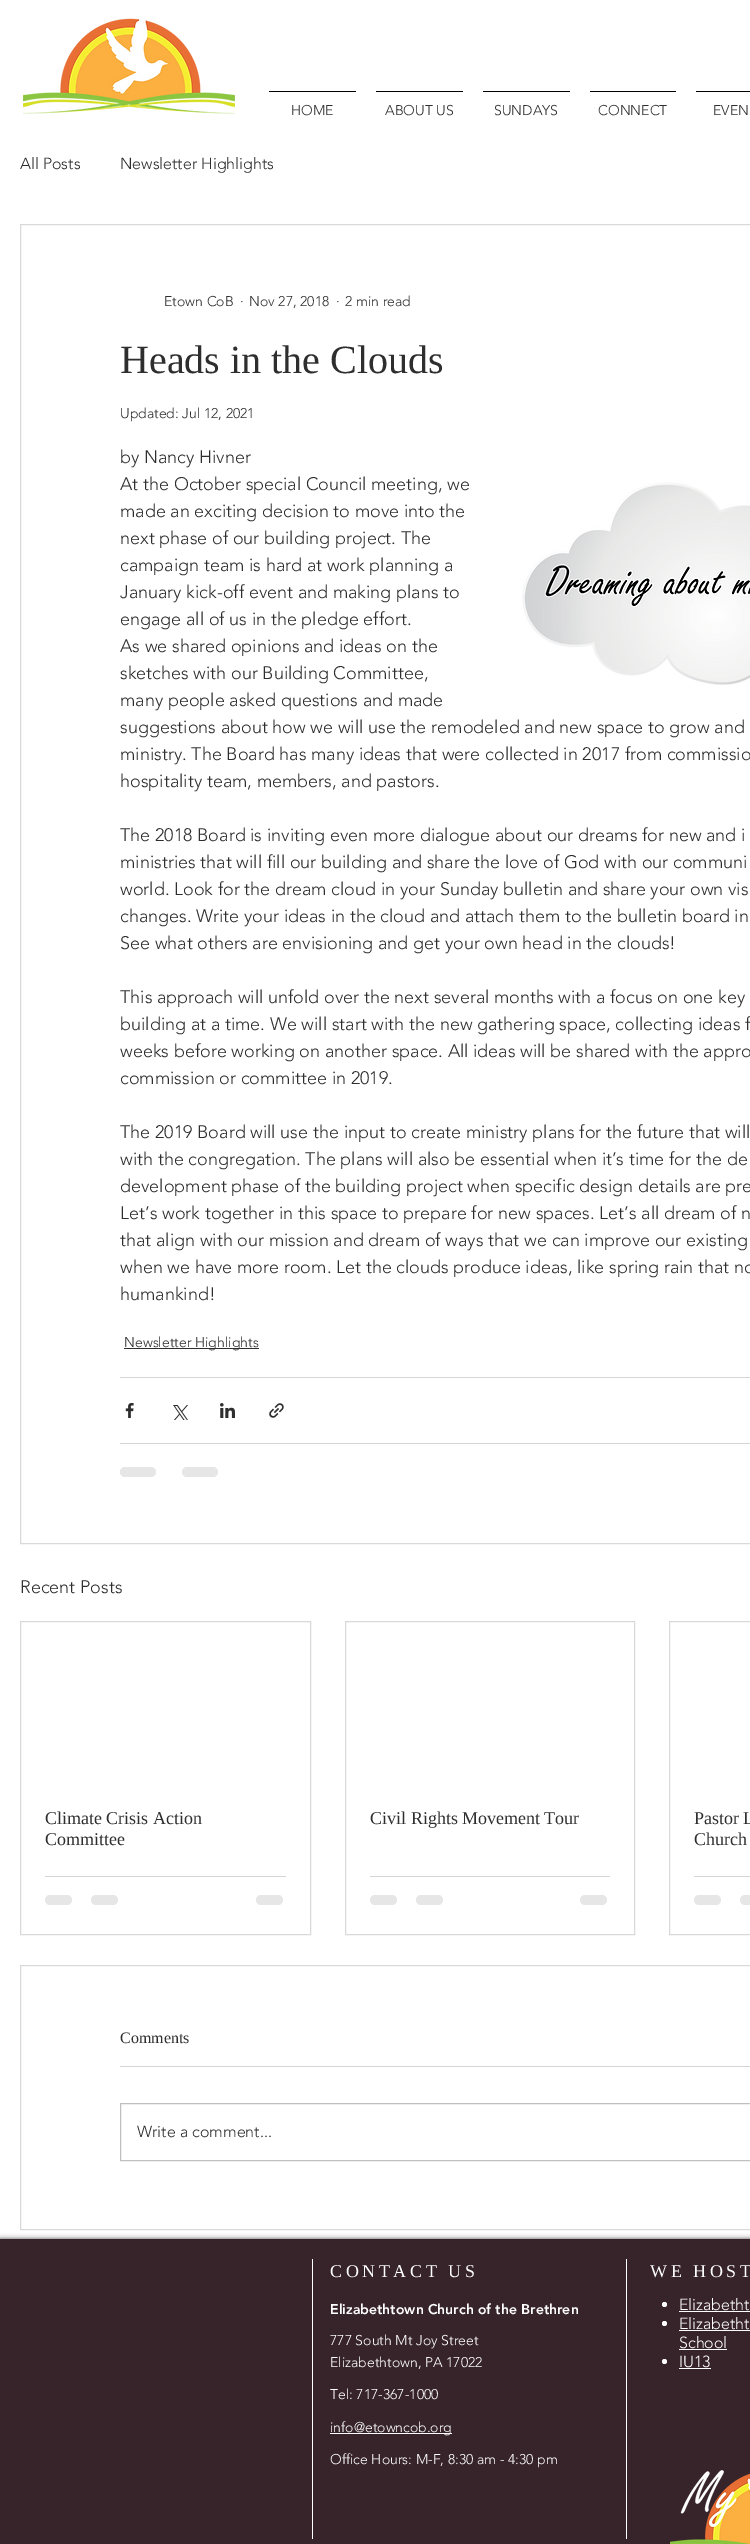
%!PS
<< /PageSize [750 2544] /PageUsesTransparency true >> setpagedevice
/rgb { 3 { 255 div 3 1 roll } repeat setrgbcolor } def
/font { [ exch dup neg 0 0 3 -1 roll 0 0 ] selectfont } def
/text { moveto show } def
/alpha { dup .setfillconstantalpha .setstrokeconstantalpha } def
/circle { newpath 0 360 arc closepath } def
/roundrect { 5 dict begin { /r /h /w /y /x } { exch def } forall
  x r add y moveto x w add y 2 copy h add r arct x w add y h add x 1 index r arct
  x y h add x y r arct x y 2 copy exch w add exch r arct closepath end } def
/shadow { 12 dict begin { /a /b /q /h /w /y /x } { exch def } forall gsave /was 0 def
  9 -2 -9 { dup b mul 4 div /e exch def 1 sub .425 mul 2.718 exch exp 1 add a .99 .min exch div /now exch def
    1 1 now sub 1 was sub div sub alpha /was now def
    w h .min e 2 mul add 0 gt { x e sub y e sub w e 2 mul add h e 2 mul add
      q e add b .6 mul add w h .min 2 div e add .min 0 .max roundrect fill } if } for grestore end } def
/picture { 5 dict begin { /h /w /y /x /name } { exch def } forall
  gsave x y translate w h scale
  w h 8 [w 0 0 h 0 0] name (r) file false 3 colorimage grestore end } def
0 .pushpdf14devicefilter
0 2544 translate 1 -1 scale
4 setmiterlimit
255 255 255 rgb
0 0 750 2544 rectfill
(img_01.rgb) 23 18 212 96 picture
0 0 0 rgb
269 91 87 1 rectfill
376 91 87 1 rectfill
483 91 87 1 rectfill
590 91 86 1 rectfill
696 91 54 1 rectfill
217 217 217 rgb
20.5 224.5 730 1319 rectstroke
(img_02.rgb) 522 482 228 203 picture
47 46 46 rgb
124 1348 135 1 rectfill
213 213 213 rgb
120 1377 630 1 rectfill
(img_03.rgb) 125 1403 9 15 picture
(img_04.rgb) 173 1405 15 15 picture
(img_05.rgb) 220 1403 15 15 picture
(img_06.rgb) 269 1403 15 15 picture
120 1443 630 1 rectfill
230 230 230 rgb
120 1467 36 10 5 roundrect fill
182 1467 36 10 5 roundrect fill
217 217 217 rgb
20.5 1621.5 290 313 rectstroke
213 213 213 rgb
45 1876 241 1 rectfill
230 230 230 rgb
45 1895 27 10 5 roundrect fill
91 1895 27 10 5 roundrect fill
256 1895 27 10 5 roundrect fill
217 217 217 rgb
345.5 1621.5 289 313 rectstroke
213 213 213 rgb
370 1876 240 1 rectfill
230 230 230 rgb
370 1895 27 10 5 roundrect fill
416 1895 27 10 5 roundrect fill
580 1895 27 10 5 roundrect fill
217 217 217 rgb
669.5 1621.5 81 313 rectstroke
213 213 213 rgb
694 1876 56 1 rectfill
230 230 230 rgb
694 1895 27 10 5 roundrect fill
740 1895 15 10 5 roundrect fill
217 217 217 rgb
20.5 1965.5 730 264 rectstroke
213 213 213 rgb
120 2066 630 1 rectfill
193 192 192 rgb
120.5 2103.5 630 57 rectstroke
0 0 0 rgb
0 2239 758 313 0 2.5 0.7 shadow
55 36 42 rgb
0 2239 750 305 rectfill
255 255 255 rgb
312 2259 1 280 rectfill
626 2259 1 280 rectfill
664.5 2304.5 2.5 circle fill
679 2311 71 1 rectfill
664.5 2323.5 2.5 circle fill
679 2330 71 1 rectfill
679 2349 48 1 rectfill
664.5 2361.5 2.5 circle fill
679 2368 32 1 rectfill
330 2433 122 1 rectfill
(img_07.rgb) 670 2470 80 74 picture
/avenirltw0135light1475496-Light 14 font
47 46 46 rgb
(HOME) 291 115 text
(ABOUT US) 385 115 text
(SUNDAYS) 494 115 text
(CONNECT) 598 115 text
(EVEN) 713 115 text
/avenirltw0135light1475496-Light 16 font
(All Posts) 20 169 text
(Newsletter Highlights) 120 169 text
/avenirltw0135light1475496-Light 14 font
(Etown CoB) 164 306 text
(·) 240 306 text
(Nov 27, 2018) 249 306 text
(·) 336 306 text
(2 min read) 345 306 text
/LiberationSerif-Regular 40 font
(Heads in the Clouds) 120 373 text
/avenirltw0135light1475496-Light 14 font
(Updated: Jul 12, 2021) 120 418 text
/avenirltw0135light1475496-Light 18 font
(by Nancy Hivner) 120 463 text
(At the October special Council meeting, we) 120 490 text
(made an exciting decision to move into the) 120 517 text
(next phase of our building project. The) 120 544 text
(campaign team is hard at work planning a) 120 571 text
(January kick-off event and making plans to) 120 598 text
(engage all of us in the pledge effort.) 120 625 text
(As we shared opinions and ideas on the) 120 652 text
(sketches with our Building Committee,) 120 679 text
(many people asked questions and made) 120 706 text
(suggestions about how we will use the remodeled and new space to grow and) 120 733 text
(ministry. The Board has many ideas that were collected in 2017 from commissio) 120 760 text
(hospitality team, members, and pastors.) 120 787 text
(The 2018 Board is inviting even more dialogue about our dreams for new and i) 120 841 text
(ministries that will fill our building and share the love of God with our communi) 120 868 text
(world. Look for the dream cloud in your Sunday bulletin and share your own vis) 120 895 text
(changes. Write your ideas in the cloud and attach them to the bulletin board in) 120 922 text
(See what others are envisioning and get your own head in the clouds!) 120 949 text
(This approach will unfold over the next several months with a focus on one key) 120 1003 text
(building at a time. We will start with the new gathering space, collecting ideas f) 120 1030 text
(weeks before working on another space. All ideas will be shared with the appro) 120 1057 text
(commission or committee in 2019.) 120 1084 text
(The 2019 Board will use the input to create ministry plans for the future that will) 120 1138 text
(with the congregation. The plans will also be essential when it’s time for the de) 120 1165 text
(development phase of the building project when specific design details are pre) 120 1192 text
(Let’s work together in this space to prepare for new spaces. Let’s all dream of n) 120 1219 text
(that align with our mission and dream of ways that we can improve our existing) 120 1246 text
(when we have more room. Let the clouds produce ideas, like spring rain that no) 120 1273 text
(humankind!) 120 1300 text
/avenirltw0135light1475496-Light 14 font
(Newsletter Highlights) 124 1347 text
/avenirltw0135light1475496-Light 18 font
(Recent Posts) 20 1593 text
/LiberationSerif-Regular 18 font
(Climate Crisis Action) 45 1824 text
(Committee) 45 1845 text
(Civil Rights Movement Tour) 370 1824 text
(Pastor L) 694 1824 text
(Church) 694 1845 text
/LiberationSerif-Regular 16 font
(Comments) 120 2043 text
/avenirltw0135light1475496-Light 16 font
(Write a comment...) 137 2137 text
/LiberationSerif-Regular 18 font
255 255 255 rgb
330 2277 moveto 3.6 0 (CONTACT US) ashow
650 2277 moveto 3.6 0 (WE HOST) ashow
/avenirltw0135light1475496-Light 16 font
(Elizabetht) 679 2310 text
(Elizabetht) 679 2329 text
(School) 679 2348 text
(IU13) 679 2367 text
/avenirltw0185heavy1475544-Black 14 font
(Elizabethtown Church of the Brethren) 330 2314 text
/avenirltw0135light1475496-Light 14 font
(777 South Mt Joy Street) 330 2345 text
(Elizabethtown, PA 17022) 330 2367 text
(Tel: 717-367-1000) 330 2399 text
(info@etowncob.org) 330 2432 text
(Office Hours: M-F, 8:30 am - 4:30 pm) 330 2464 text
.poppdf14devicefilter showpage
